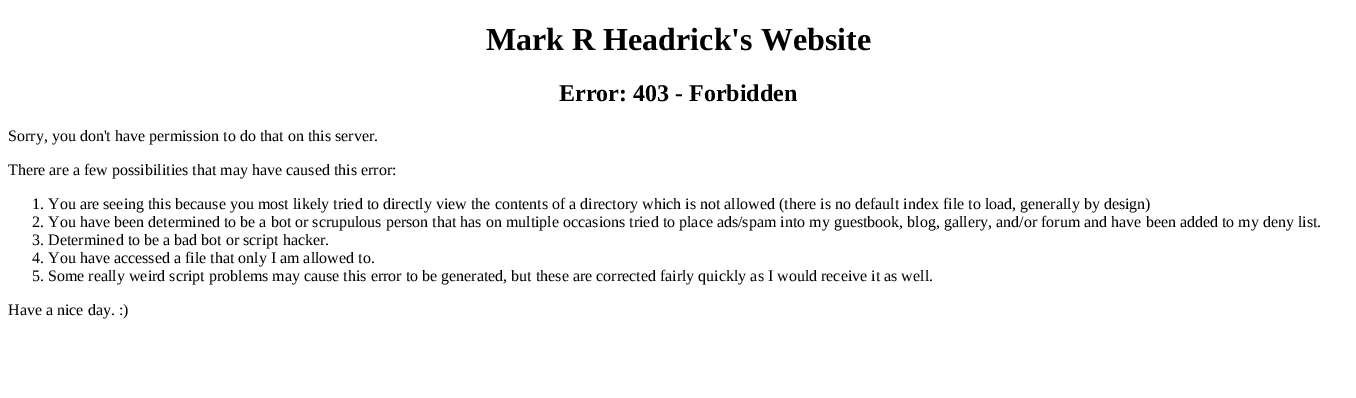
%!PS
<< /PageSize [1356 398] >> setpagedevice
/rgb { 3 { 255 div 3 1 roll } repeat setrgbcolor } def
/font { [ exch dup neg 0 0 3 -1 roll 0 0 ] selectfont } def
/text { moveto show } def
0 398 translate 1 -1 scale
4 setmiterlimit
255 255 255 rgb
0 0 1356 398 rectfill
/LiberationSerif-Bold 32 font
0 0 0 rgb
(Mark R Headrick's Website) 486 50 text
/LiberationSerif-Bold 24 font
(Error: 403 - Forbidden) 559 101 text
/LiberationSerif-Regular 16 font
(Sorry, you don't have permission to do that on this server.) 8 141 text
(There are a few possibilities that may have caused this error:) 8 175 text
(1. You are seeing this because you most likely tried to directly view the contents of a directory which is not allowed \(there is no default index file to load, generally by design\)) 32 209 text
(2. You have been determined to be a bot or scrupulous person that has on multiple occasions tried to place ads/spam into my guestbook, blog, gallery, and/or forum and have been added to my deny list.) 32 227 text
(3. Determined to be a bad bot or script hacker.) 32 245 text
(4. You have accessed a file that only I am allowed to.) 32 263 text
(5. Some really weird script problems may cause this error to be generated, but these are corrected fairly quickly as I would receive it as well.) 32 281 text
(Have a nice day. :\)) 8 315 text
showpage
